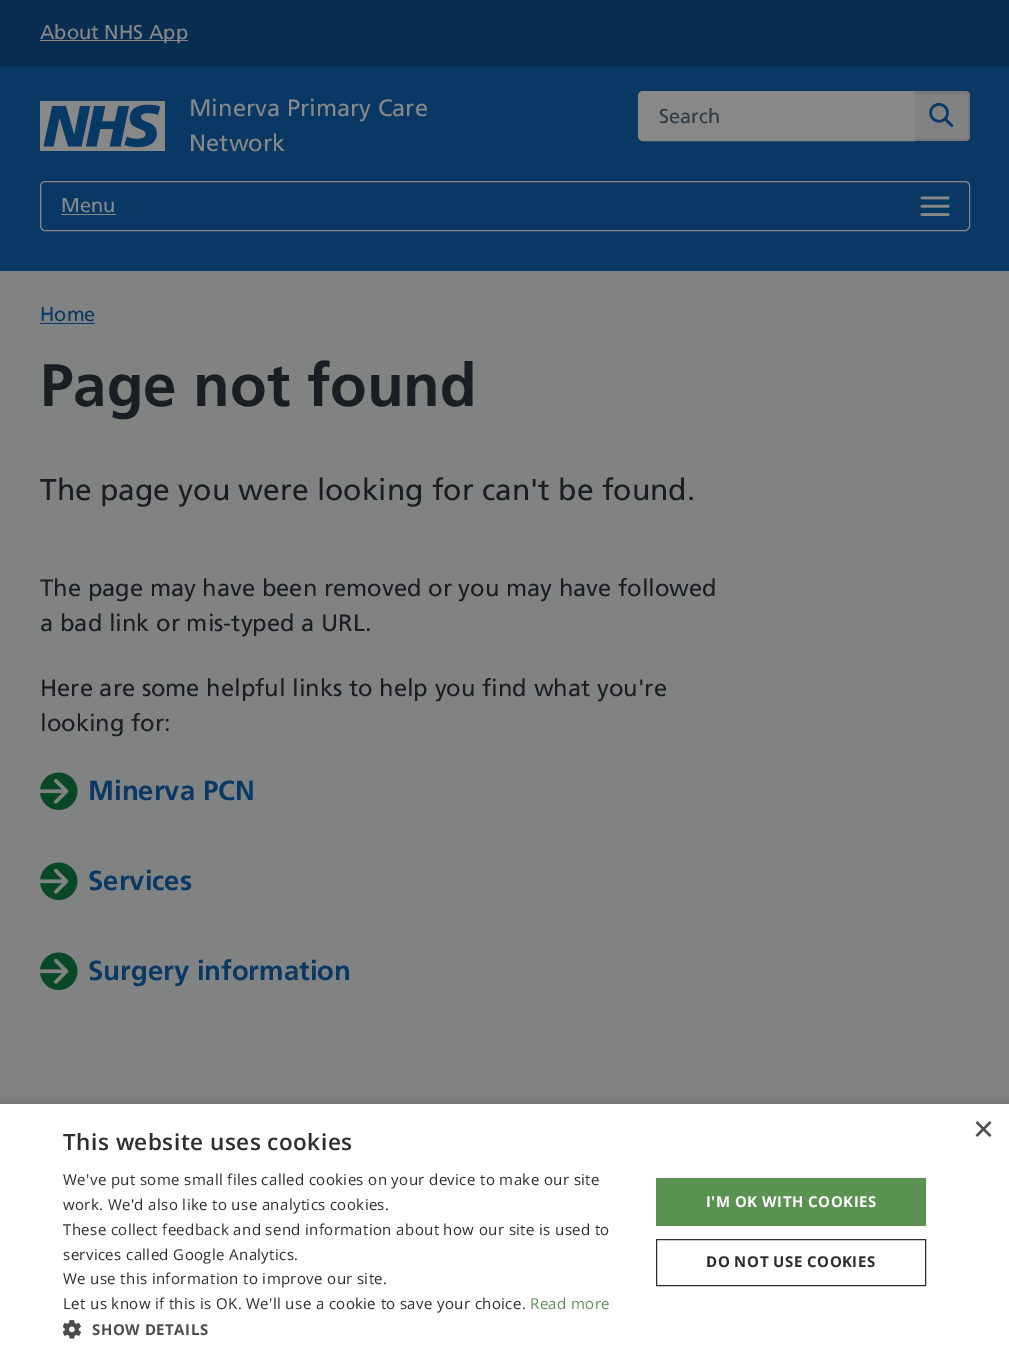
%!PS
<< /PageSize [1009 1360] /PageUsesTransparency true >> setpagedevice
/rgb { 3 { 255 div 3 1 roll } repeat setrgbcolor } def
/font { [ exch dup neg 0 0 3 -1 roll 0 0 ] selectfont } def
/text { moveto show } def
/alpha { dup .setfillconstantalpha .setstrokeconstantalpha } def
/roundrect { 5 dict begin { /r /h /w /y /x } { exch def } forall
  x r add y moveto x w add y 2 copy h add r arct x w add y h add x 1 index r arct
  x y h add x y r arct x y 2 copy exch w add exch r arct closepath end } def
/shadow { 12 dict begin { /a /b /q /h /w /y /x } { exch def } forall gsave /was 0 def
  9 -2 -9 { dup b mul 4 div /e exch def 1 sub .425 mul 2.718 exch exp 1 add a .99 .min exch div /now exch def
    1 1 now sub 1 was sub div sub alpha /was now def
    w h .min e 2 mul add 0 gt { x e sub y e sub w e 2 mul add h e 2 mul add
      q e add b .6 mul add w h .min 2 div e add .min 0 .max roundrect fill } if } for grestore end } def
/picture { 5 dict begin { /h /w /y /x /name } { exch def } forall
  gsave x y translate w h scale
  w h 8 [w 0 0 h 0 0] name (r) file false 3 colorimage grestore end } def
0 .pushpdf14devicefilter
0 1360 translate 1 -1 scale
4 setmiterlimit
129 131 131 rgb
0 0 1009 1360 rectfill
9 56 101 rgb
0 66 1009 205 rectfill
9 46 82 rgb
0 0 1009 66 rectfill
136 136 136 rgb
40 40 148 1 rectfill
(img_01.rgb) 40 101 125 50 picture
643 91.5 moveto 271.5 0 rlineto 0 49 rlineto -271.5 0 rlineto -2.5 0 -4.5 -2 -4.5 -4.5 rcurveto 0 -40 rlineto 0 -2.5 2 -4.5 4.5 -4.5 rcurveto closepath gsave fill grestore
stroke
129 131 131 rgb
915 91 moveto 50 0 rlineto 3 0 5 2 5 5 rcurveto 0 40 rlineto 0 3 -2 5 -5 5 rcurveto -50 0 rlineto closepath fill
117 119 121 rgb
915 91 moveto 50 0 rlineto 3 0 5 2 5 5 rcurveto 0 40 rlineto 0 3 -2 5 -5 5 rcurveto -50 0 rlineto closepath 915 94 moveto 50 0 rlineto 1 0 3 1 3 2 rcurveto 0 40 rlineto 0 2 -2 3 -3 3 rcurveto -50 0 rlineto closepath eofill
(img_02.rgb) 929 103 25 24 picture
136 136 136 rgb
40.5 181.5 929 49 4.5 roundrect stroke
61 214 55 1 rectfill
(img_03.rgb) 920 196 30 21 picture
9 56 101 rgb
40 323 55 1 rectfill
(img_04.rgb) 40 772 38 38 picture
(img_04.rgb) 40 862 38 38 picture
(img_04.rgb) 40 952 38 38 picture
0 0 0 rgb
1 1106 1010 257 0 5 0.35 shadow
255 255 255 rgb
0 1104 1009 256 rectfill
(img_05.rgb) 63 1320 18 19 picture
90 147 81 rgb
656 1178 270 48 rectfill
45 45 45 rgb
656.5 1239.5 269 46 rectstroke
/Frutiger-Regular 20 font
136 136 136 rgb
(About NHS App) 40 39 text
/Frutiger-Regular 23.75 font
(Minerva Primary Care) 189 116 text
(Network) 189 151 text
/Frutiger-Regular 20 font
47 58 66 rgb
(Search) 659 123 text
136 136 136 rgb
(Menu) 61 212 text
9 56 101 rgb
(Home) 40 321 text
/Frutiger-Bold 60 font
25 30 34 rgb
(Page not found) 40 406 text
/Frutiger-Regular 30 font
(The page you were looking for can't be found.) 40 500 text
/Frutiger-Regular 23.75 font
(The page may have been removed or you may have followed) 40 596 text
(a bad link or mis-typed a URL.) 40 631 text
(Here are some helpful links to help you find what you're) 40 696 text
(looking for:) 40 731 text
/Frutiger-Bold 27.5 font
9 56 101 rgb
(Minerva PCN) 88 800 text
(Services) 88 890 text
(Surgery information) 88 980 text
/LiberationSans-Regular 36 font
77 77 77 rgb
(×) 973 1141 text
/OpenSans-SemiBold 22.5 font
45 45 45 rgb
63 1150 moveto 0.5 0 (This website uses cookies) ashow
/OpenSans-Regular 15 font
63 1185 moveto 0.38 0 (We've put some small files called cookies on your device to make our site) ashow
63 1210 moveto 0.38 0 (work. We'd also like to use analytics cookies.) ashow
63 1235 moveto 0.38 0 (These collect feedback and send information about how our site is used to) ashow
63 1260 moveto 0.38 0 (services called Google Analytics.) ashow
63 1284 moveto 0.38 0 (We use this information to improve our site.) ashow
63 1309 moveto 0.38 0 (Let us know if this is OK. We'll use a cookie to save your choice.) ashow
90 147 81 rgb
530 1309 moveto 0.38 0 (Read more) ashow
/OpenSans-Bold 15 font
77 77 77 rgb
92 1335 moveto 0.5 0 (SHOW DETAILS) ashow
255 255 255 rgb
706 1207 moveto 0.5 0 (I'M OK WITH COOKIES) ashow
45 45 45 rgb
706 1267 moveto 0.5 0 (DO NOT USE COOKIES) ashow
.poppdf14devicefilter showpage
